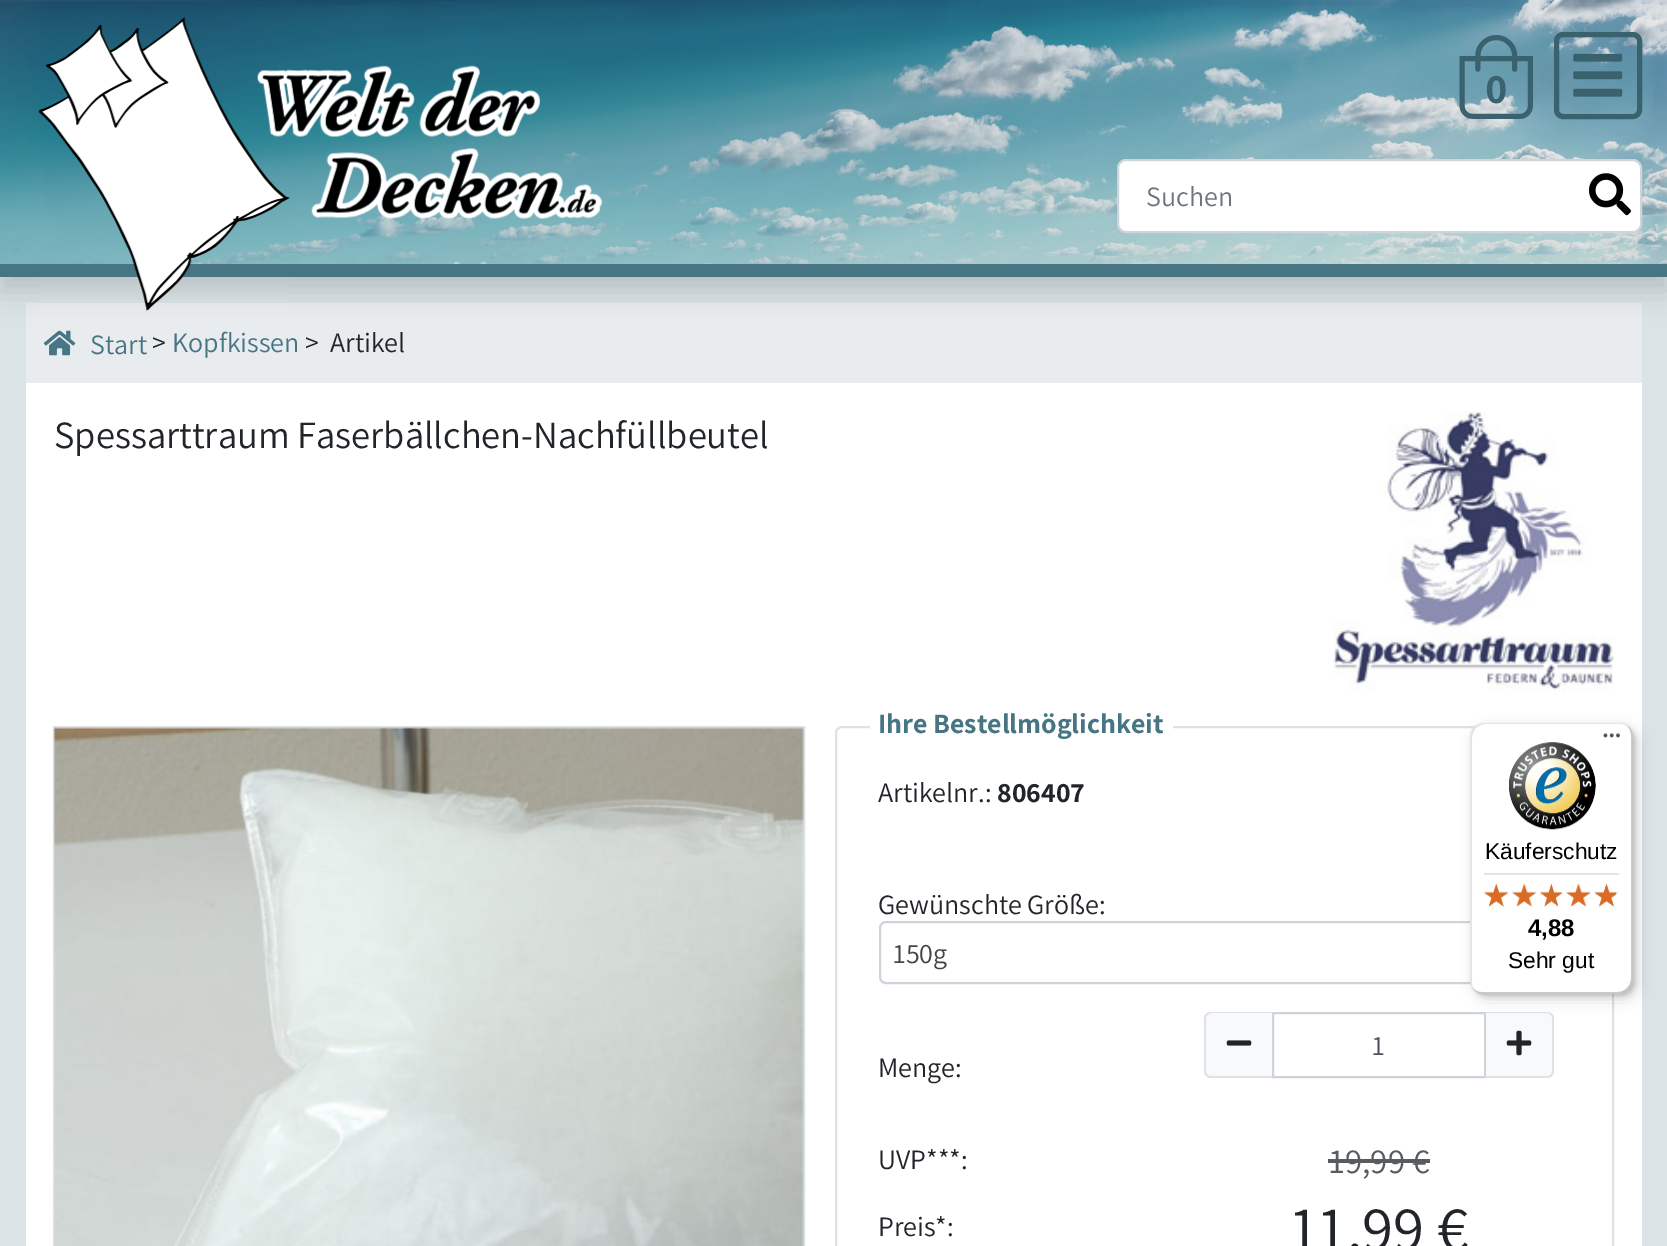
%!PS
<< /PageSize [1667 1246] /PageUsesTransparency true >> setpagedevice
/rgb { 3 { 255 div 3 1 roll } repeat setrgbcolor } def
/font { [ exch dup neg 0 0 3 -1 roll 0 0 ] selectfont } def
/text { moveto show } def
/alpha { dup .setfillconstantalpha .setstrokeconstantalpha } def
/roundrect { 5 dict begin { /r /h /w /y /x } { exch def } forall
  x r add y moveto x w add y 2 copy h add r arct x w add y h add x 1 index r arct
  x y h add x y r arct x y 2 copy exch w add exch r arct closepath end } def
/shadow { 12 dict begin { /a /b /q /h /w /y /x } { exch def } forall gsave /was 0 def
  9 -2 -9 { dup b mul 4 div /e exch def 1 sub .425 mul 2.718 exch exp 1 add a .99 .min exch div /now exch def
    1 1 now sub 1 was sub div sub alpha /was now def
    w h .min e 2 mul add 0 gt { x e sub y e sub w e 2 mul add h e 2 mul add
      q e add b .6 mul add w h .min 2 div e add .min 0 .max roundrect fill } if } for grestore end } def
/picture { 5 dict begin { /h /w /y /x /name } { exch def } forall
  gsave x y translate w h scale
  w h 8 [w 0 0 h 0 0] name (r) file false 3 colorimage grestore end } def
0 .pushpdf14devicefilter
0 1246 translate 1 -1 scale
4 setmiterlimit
218 227 230 rgb
0 0 1667 1246 rectfill
233 236 239 rgb
26 303 1616 80 rectfill
(img_07.rgb) 43 330 33 26 picture
0 0 0 rgb
0 14 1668 277 0 14 0.15 shadow
(img_05.rgb) 0 0 1667 264 picture
(img_02.rgb) 257 65 346 154 picture
71 117 132 rgb
0 264 1667 13 rectfill
(img_01.rgb) 38 17 252 294 picture
58 97 110 rgb
5 setlinewidth
1556.5 34.5 83 82 6.5 roundrect stroke
(img_04.rgb) 1573 53 50 44 picture
255 255 255 rgb
1118 160 523 72 8 roundrect gsave fill grestore
206 212 218 rgb
2 setlinewidth
stroke
(img_06.rgb) 1589 173 42 43 picture
255 255 255 rgb
26 383 1616 863 rectfill
(img_08.rgb) 1333 411 281 280 picture
222 226 230 rgb
54 727 750 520 rectstroke
(img_09.rgb) 53 727 751 519 picture
836 727 777 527 6 roundrect stroke
255 255 255 rgb
879 697 moveto 294 0 rlineto 0 54 rlineto -294 0 rlineto -5 0 -9 -4 -9 -9 rcurveto 0 -36 rlineto 0 -5 4 -9 9 -9 rcurveto closepath fill
206 212 218 rgb
880 922 689 61 6 roundrect stroke
248 249 250 rgb
1211 1012 moveto 61 0 rlineto 0 66 rlineto -61 0 rlineto -4 0 -7 -3 -7 -7 rcurveto 0 -52 rlineto 0 -4 3 -7 7 -7 rcurveto closepath fill
222 226 230 rgb
1211 1012 moveto 61 0 rlineto 0 66 rlineto -61 0 rlineto -4 0 -7 -3 -7 -7 rcurveto 0 -53 rlineto 0 -3 3 -6 7 -6 rcurveto closepath 1211 1013 moveto 61 0 rlineto 0 63 rlineto -61 0 rlineto -3 0 -5 -2 -5 -5 rcurveto 0 -53 rlineto 0 -2 2 -5 5 -5 rcurveto closepath eofill
(img_10.rgb) 1226 1040 26 6 picture
206 212 218 rgb
1273 1013 212 64 rectstroke
248 249 250 rgb
1486 1012 moveto 61 0 rlineto 4 0 7 3 7 7 rcurveto 0 52 rlineto 0 4 -3 7 -7 7 rcurveto -61 0 rlineto closepath fill
222 226 230 rgb
1486 1012 moveto 61 0 rlineto 4 0 7 3 7 6 rcurveto 0 53 rlineto 0 4 -3 7 -7 7 rcurveto -61 0 rlineto closepath 1486 1013 moveto 61 0 rlineto 3 0 5 3 5 5 rcurveto 0 53 rlineto 0 3 -2 5 -5 5 rcurveto -61 0 rlineto closepath eofill
(img_11.rgb) 1506 1030 26 26 picture
89 92 95 rgb
1328 1159 102 4 rectfill
0 0 0 rgb
1475 728 163 271 14 7 0.15 shadow
1472 725 163 271 14 2 0.15 shadow
255 255 255 rgb
1470 723 163 271 14 roundrect fill
0.1 alpha
0 0 0 rgb
1486 724 moveto 134 0 rlineto 4 0 8 2 10 5 rcurveto -2 -4 -6 -6 -11 -6 rcurveto -135 0 rlineto -8 0 -14 6 -14 14 rcurveto 0 243 rlineto 0 5 2 9 6 11 rcurveto -3 -2 -4 -6 -4 -9 rcurveto 0 -244 rlineto 0 -7 6 -14 14 -14 rcurveto closepath fill
0.2 alpha
1473 988 moveto 2 4 6 6 11 6 rcurveto 135 0 rlineto 8 0 14 -6 14 -14 rcurveto 0 -243 rlineto 0 -4 -2 -8 -5 -10 rcurveto 2 2 3 5 3 8 rcurveto 0 243 rlineto 0 8 -6 14 -14 14 rcurveto -135 0 rlineto -3 0 -7 -1 -9 -4 rcurveto closepath fill
50 50 50 rgb
1475 990 moveto 2 3 5 4 9 4 rcurveto 135 0 rlineto 8 0 14 -6 14 -14 rcurveto 0 -243 rlineto 0 -5 -2 -9 -6 -11 rcurveto 3 2 5 6 5 10 rcurveto 0 243 rlineto 0 8 -7 14 -14 14 rcurveto -135 0 rlineto -3 0 -6 -1 -8 -3 rcurveto closepath fill
0.3 alpha
255 255 255 rgb
1475 990 moveto 2 3 5 4 9 4 rcurveto 135 0 rlineto 8 0 14 -6 14 -14 rcurveto 0 -243 rlineto 0 -4 -1 -7 -4 -9 rcurveto 2 2 3 5 3 8 rcurveto 0 243 rlineto 0 8 -6 14 -14 14 rcurveto -135 0 rlineto -3 0 -6 -1 -8 -3 rcurveto closepath fill
1 alpha
(img_12.rgb) 1603 733 17 5 picture
(img_13.rgb) 1509 742 87 88 picture
229 229 229 rgb
1484 873 135 2 rectfill
(img_19.rgb) 1484 884 24 23 picture
(img_14.rgb) 1484 883 24 24 picture
(img_20.rgb) 1512 884 24 23 picture
(img_15.rgb) 1512 883 25 24 picture
(img_21.rgb) 1540 884 23 23 picture
(img_16.rgb) 1540 883 23 24 picture
(img_22.rgb) 1566 884 25 22 picture
(img_17.rgb) 1566 883 25 24 picture
(img_23.rgb) 1595 884 23 23 picture
(img_18.rgb) 1594 883 22 24 picture
/Assistant-Bold 42 font
58 97 110 rgb
(0) 1485 103 text
(img_03.rgb) 1459 35 74 84 picture
/Assistant-Regular 28 font
108 117 125 rgb
(Suchen) 1146 206 text
71 117 132 rgb
(Start) 90 354 text
33 37 41 rgb
(>) 152 352 text
71 117 132 rgb
(Kopfkissen) 172 352 text
33 37 41 rgb
(>  Artikel) 305 352 text
/Assistant-Regular 38.5 font
(Spessarttraum Faserbällchen-Nachfüllbeutel) 54 448 text
/Assistant-Bold 28 font
71 117 132 rgb
(Ihre Bestellmöglichkeit) 878 733 text
/Assistant-Regular 28 font
33 37 41 rgb
(Artikelnr.:) 878 802 text
/Assistant-Bold 28 font
(806407) 997 802 text
/Assistant-Regular 28 font
(Gewünschte Größe:) 878 914 text
68 68 68 rgb
(150g) 893 963 text
73 80 87 rgb
(1) 1372 1055 text
33 37 41 rgb
(Menge:) 878 1077 text
(UVP***:) 878 1169 text
/Assistant-Regular 35 font
89 92 95 rgb
(19,99 €) 1329 1173 text
/Assistant-Regular 28 font
33 37 41 rgb
(Preis*:) 878 1236 text
/Assistant-Regular 63 font
(11,99 €) 1290 1250 text
/LiberationSans-Regular 22.75 font
0 0 0 rgb
(Käuferschutz) 1485 859 text
/LiberationSans-Bold 24 font
(4,88) 1528 936 text
/LiberationSans-Regular 22.75 font
(Sehr gut) 1508 968 text
.poppdf14devicefilter showpage
